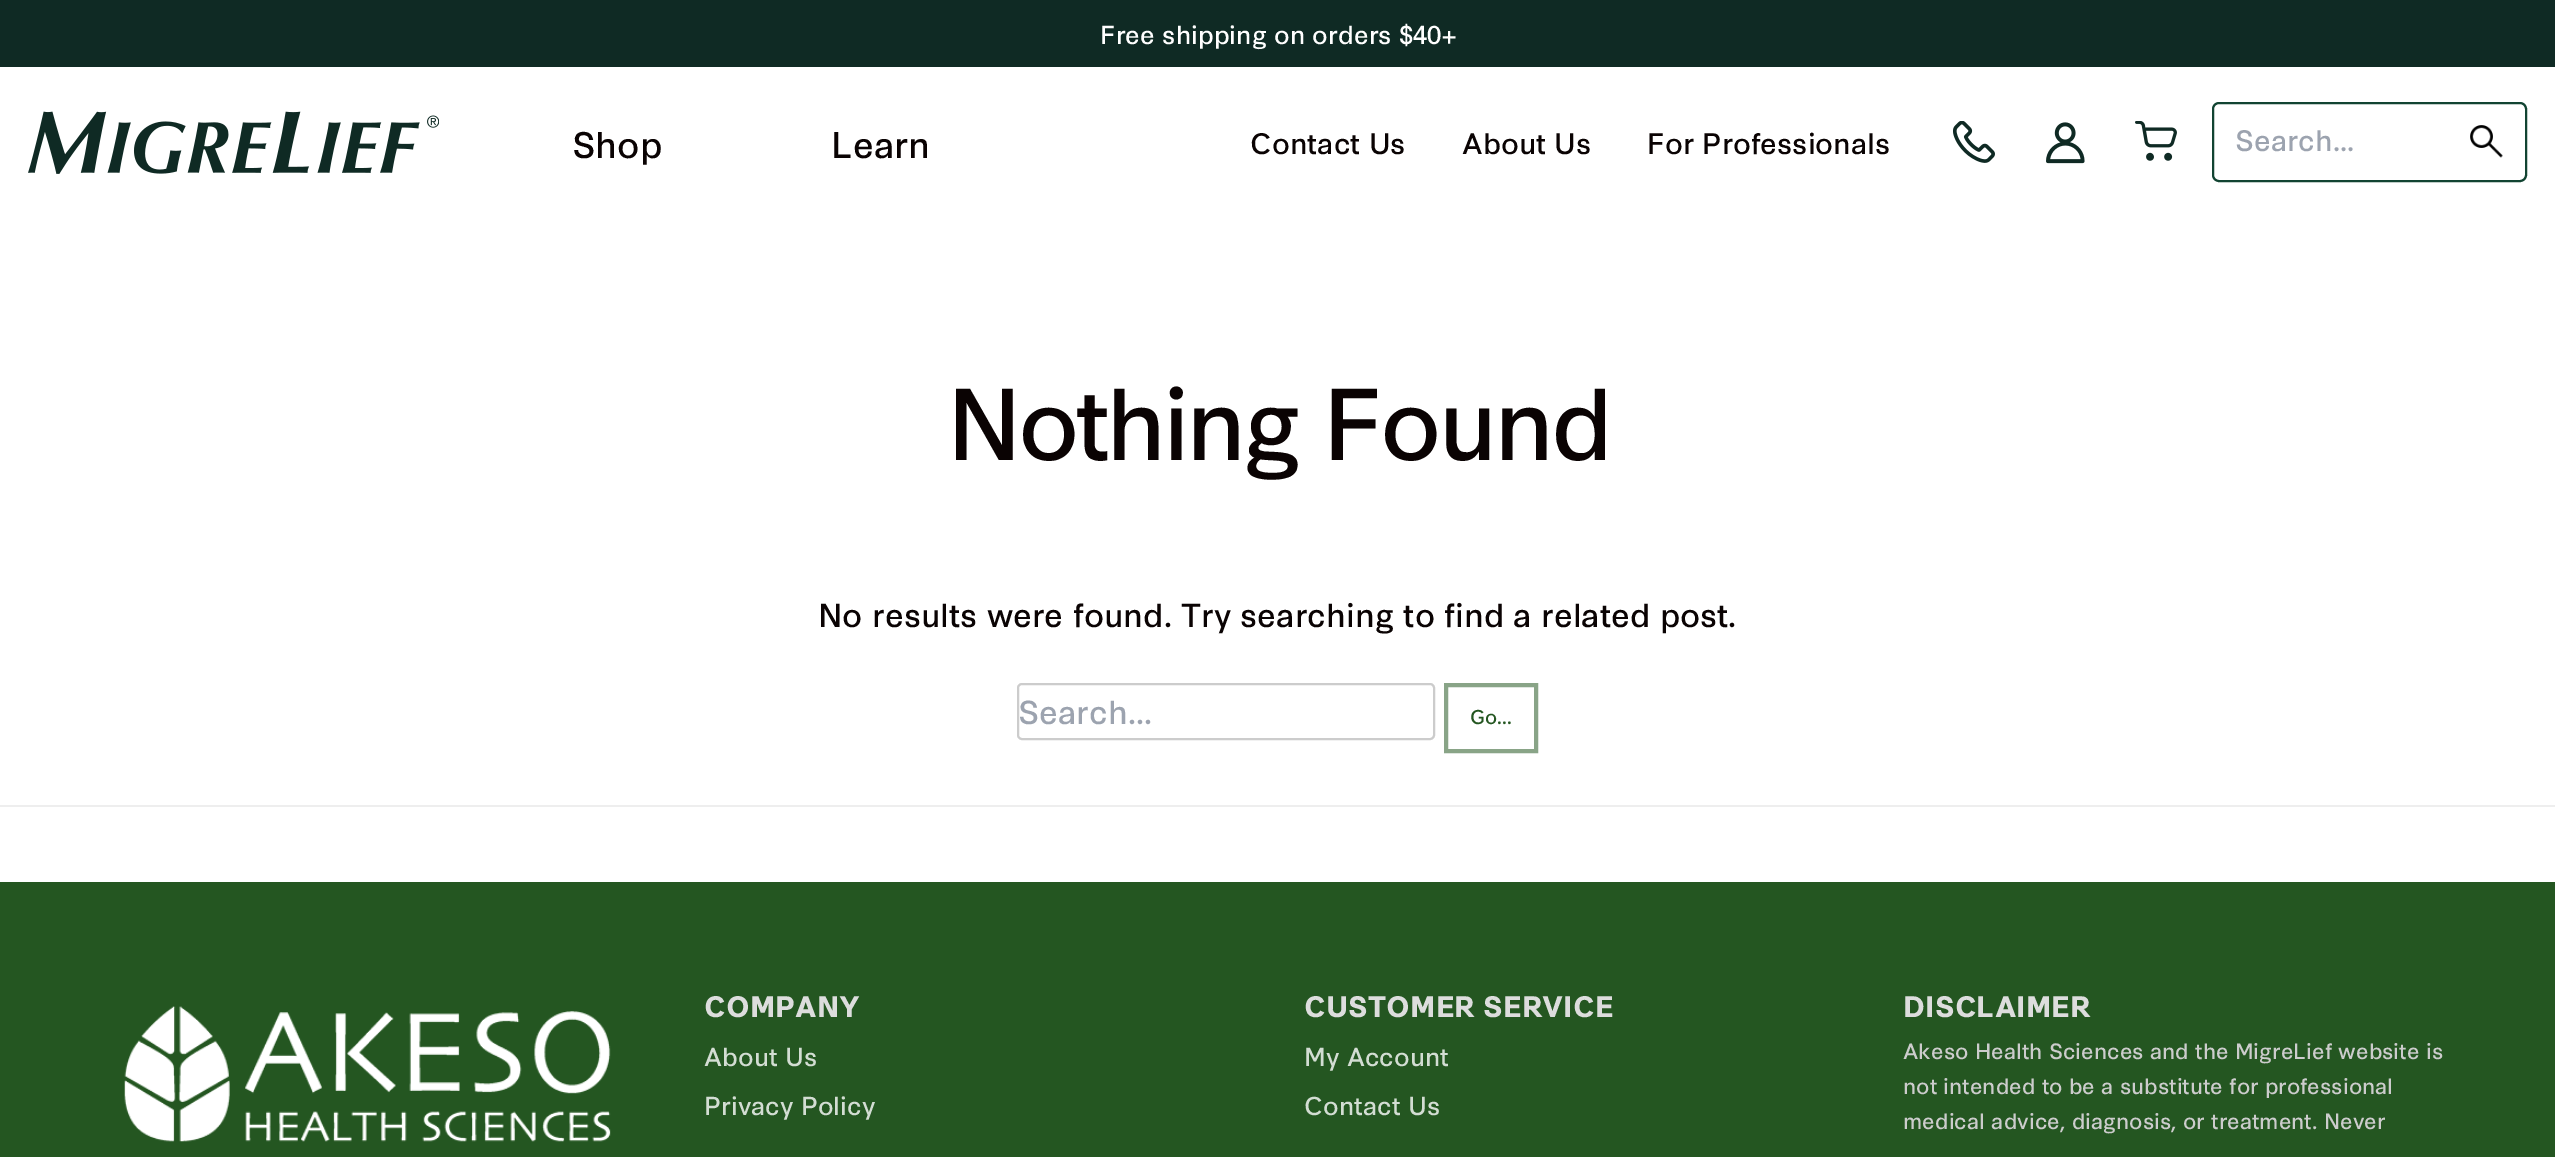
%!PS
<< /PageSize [2555 1157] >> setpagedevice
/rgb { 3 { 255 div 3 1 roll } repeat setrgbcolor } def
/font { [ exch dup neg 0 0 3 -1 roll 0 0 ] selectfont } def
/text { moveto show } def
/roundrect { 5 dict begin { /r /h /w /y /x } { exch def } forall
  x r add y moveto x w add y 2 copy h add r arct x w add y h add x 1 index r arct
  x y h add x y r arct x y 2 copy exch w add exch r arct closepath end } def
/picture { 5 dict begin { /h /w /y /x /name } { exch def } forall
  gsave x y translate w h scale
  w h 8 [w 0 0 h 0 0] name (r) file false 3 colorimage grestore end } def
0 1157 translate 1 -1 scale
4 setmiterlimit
255 255 255 rgb
0 0 2555 1157 rectfill
15 42 36 rgb
0 0 2555 67 rectfill
(img_01.rgb) 28 111 411 63 picture
(img_02.rgb) 1953 121 42 42 picture
(img_03.rgb) 2046 122 39 42 picture
(img_04.rgb) 2135 121 42 40 picture
18 68 50 rgb
2 setlinewidth
2213 103 313 78 6 roundrect stroke
(img_05.rgb) 2470 125 33 33 picture
238 238 238 rgb
0 805 2555 2 rectfill
204 204 204 rgb
1018 684 416 55 4 roundrect stroke
137 164 135 rgb
4 setlinewidth
1446 685 90 66 rectstroke
36 86 33 rgb
0 882 2555 275 rectfill
(img_06.rgb) 124 1006 487 136 picture
/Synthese-Regular 24.5 font
255 255 255 rgb
(Free shipping on orders $40+) 1100 44 text
/Synthese-Regular 35 font
10 3 3 rgb
(Shop) 572 158 text
(Learn) 831 158 text
/Synthese-Regular 28 font
(Contact Us) 1250 154 text
(About Us) 1462 154 text
(For Professionals) 1647 154 text
156 163 175 rgb
(Search...) 2235 151 text
/Synthese-Regular 96.25 font
10 3 3 rgb
947 460 moveto -3.8 0 (Nothing Found) ashow
/Synthese-Regular 31.5 font
(No results were found. Try searching to find a related post.) 818 627 text
156 163 175 rgb
(Search...) 1018 724 text
/Synthese-Regular 19 font
36 86 33 rgb
(Go...) 1470 724 text
/Synthese-Bold 28 font
221 221 221 rgb
(COMPANY) 704 1017 text
/Synthese-Regular 24.5 font
211 221 211 rgb
(About Us) 704 1066 text
(Privacy Policy) 704 1115 text
/Synthese-Bold 28 font
221 221 221 rgb
(CUSTOMER SERVICE) 1304 1017 text
/Synthese-Regular 24.5 font
211 221 211 rgb
(My Account) 1304 1066 text
(Contact Us) 1304 1115 text
/Synthese-Bold 28 font
221 221 221 rgb
(DISCLAIMER) 1903 1017 text
/Synthese-Regular 21 font
204 204 204 rgb
(Akeso Health Sciences and the MigreLief website is) 1903 1059 text
(not intended to be a substitute for professional) 1903 1094 text
(medical advice, diagnosis, or treatment. Never) 1903 1129 text
showpage
